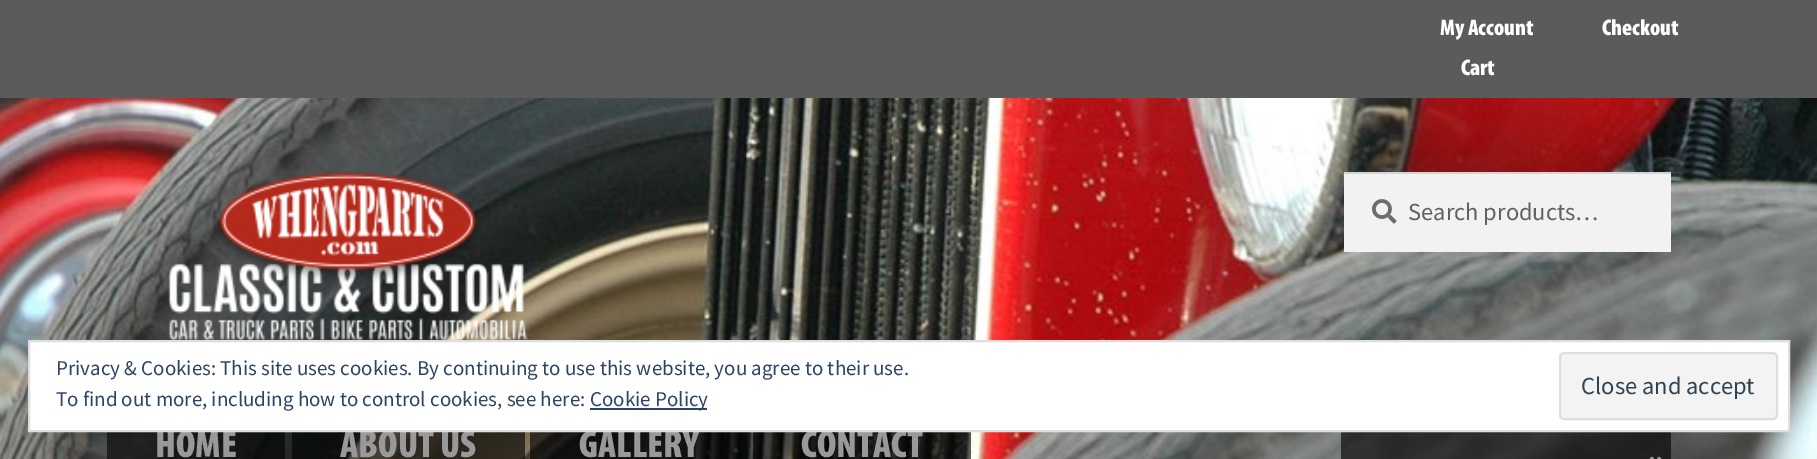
%!PS
<< /PageSize [1817 459] /PageUsesTransparency true >> setpagedevice
/rgb { 3 { 255 div 3 1 roll } repeat setrgbcolor } def
/font { [ exch dup neg 0 0 3 -1 roll 0 0 ] selectfont } def
/text { moveto show } def
/alpha { dup .setfillconstantalpha .setstrokeconstantalpha } def
/roundrect { 5 dict begin { /r /h /w /y /x } { exch def } forall
  x r add y moveto x w add y 2 copy h add r arct x w add y h add x 1 index r arct
  x y h add x y r arct x y 2 copy exch w add exch r arct closepath end } def
/picture { 5 dict begin { /h /w /y /x /name } { exch def } forall
  gsave x y translate w h scale
  w h 8 [w 0 0 h 0 0] name (r) file false 3 colorimage grestore end } def
0 .pushpdf14devicefilter
0 459 translate 1 -1 scale
4 setmiterlimit
91 91 91 rgb
0 0 1817 459 rectfill
(img_01.rgb) 0 98 1817 361 picture
(img_02.rgb) 168 172 360 168 picture
242 242 242 rgb
1344 174 327 78 rectfill
(img_03.rgb) 1372 199 25 25 picture
212 212 212 rgb
1344 172 327 2 rectfill
0.61 alpha
0 0 0 rgb
107 432 178 27 rectfill
292 432 233 27 rectfill
530 432 217 27 rectfill
753 432 218 27 rectfill
1341 432 330 27 rectfill
1 alpha
(img_04.rgb) 1649 456 13 3 picture
/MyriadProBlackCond-Black 22.75 font
255 255 255 rgb
(My Account) 1440 35 text
(Checkout) 1602 35 text
(Cart) 1461 75 text
/SourceSansPro-Regular 24.5 font
97 97 97 rgb
(Search products…) 1408 220 text
/MyriadProBlackCond-Black 39 font
153 153 153 rgb
(HOME) 155 457 text
(ABOUT US) 340 457 text
(GALLERY) 579 457 text
(CONTACT) 801 457 text
255 255 255 rgb
29 341 moveto 1760 0 rlineto 0 90 rlineto -1760 0 rlineto closepath gsave fill grestore
222 222 222 rgb
2 setlinewidth
stroke
/SourceSansPro-Regular 21 font
46 68 103 rgb
(Privacy & Cookies: This site uses cookies. By continuing to use this website, you agree to their use.) 56 375 text
(To find out more, including how to control cookies, see here:) 56 406 text
590 408 117 2 rectfill
(Cookie Policy) 590 406 text
243 243 243 rgb
1560 353 217 66 4 roundrect gsave fill grestore
222 222 222 rgb
stroke
/SourceSansPro-Regular 24.5 font
46 68 83 rgb
(Close and accept) 1581 394 text
.poppdf14devicefilter showpage
